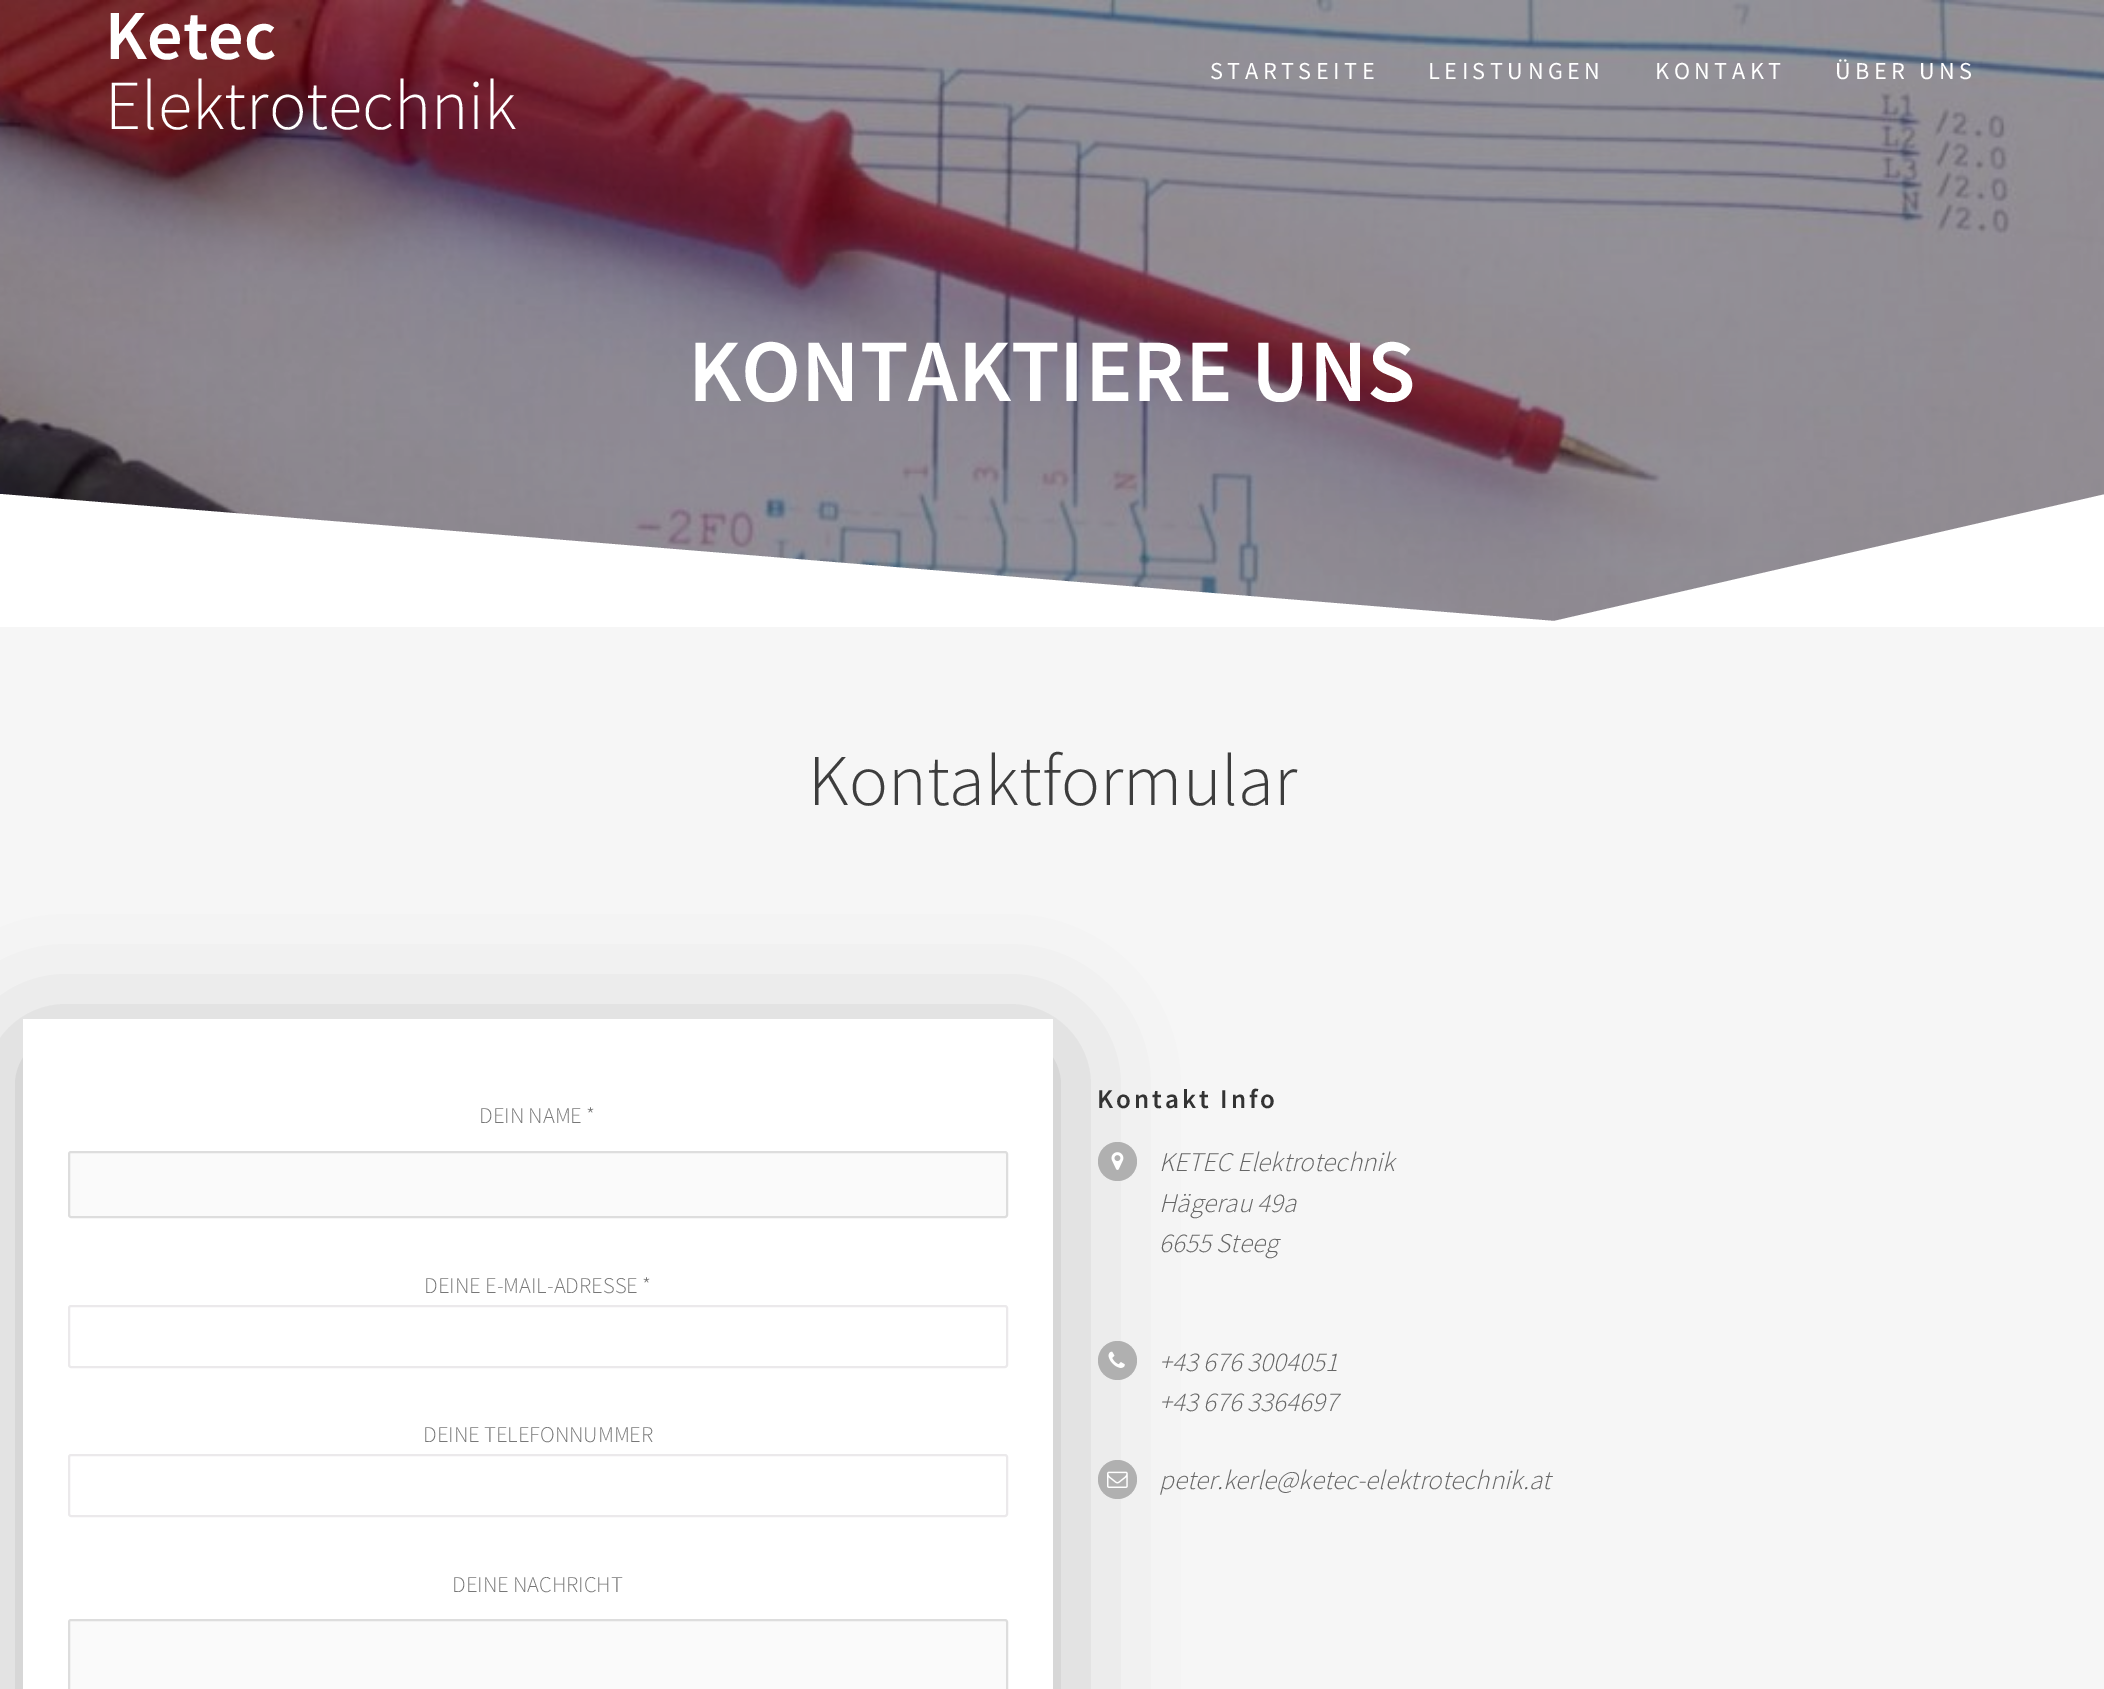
%!PS
<< /PageSize [2104 1689] /PageUsesTransparency true >> setpagedevice
/rgb { 3 { 255 div 3 1 roll } repeat setrgbcolor } def
/font { [ exch dup neg 0 0 3 -1 roll 0 0 ] selectfont } def
/text { moveto show } def
/alpha { dup .setfillconstantalpha .setstrokeconstantalpha } def
/circle { newpath 0 360 arc closepath } def
/roundrect { 5 dict begin { /r /h /w /y /x } { exch def } forall
  x r add y moveto x w add y 2 copy h add r arct x w add y h add x 1 index r arct
  x y h add x y r arct x y 2 copy exch w add exch r arct closepath end } def
/shadow { 12 dict begin { /a /b /q /h /w /y /x } { exch def } forall gsave /was 0 def
  9 -2 -9 { dup b mul 4 div /e exch def 1 sub .425 mul 2.718 exch exp 1 add a .99 .min exch div /now exch def
    1 1 now sub 1 was sub div sub alpha /was now def
    w h .min e 2 mul add 0 gt { x e sub y e sub w e 2 mul add h e 2 mul add
      q e add b .6 mul add w h .min 2 div e add .min 0 .max roundrect fill } if } for grestore end } def
/picture { 5 dict begin { /h /w /y /x /name } { exch def } forall
  gsave x y translate w h scale
  w h 8 [w 0 0 h 0 0] name (r) file false 3 colorimage grestore end } def
0 .pushpdf14devicefilter
0 1689 translate 1 -1 scale
4 setmiterlimit
255 255 255 rgb
0 0 2104 1689 rectfill
(img_01.rgb) 0 0 2104 621 picture
1554 621 moveto -1554 -127 rlineto 0 134 rlineto 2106 0 rlineto 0 -134 rlineto closepath fill
246 246 246 rgb
0 627 2104 1062 rectfill
0 0 0 rgb
30 1049 1016 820 0 60 0.25 shadow
255 255 255 rgb
23 1019 1030 670 rectfill
250 250 250 rgb
69 1152 938 65 2 roundrect gsave fill grestore
221 221 221 rgb
2 setlinewidth
stroke
235 233 235 rgb
69 1306 938 61 2 roundrect stroke
69 1455 938 61 2 roundrect stroke
250 250 250 rgb
69 1620 938 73 2 roundrect gsave fill grestore
221 221 221 rgb
stroke
176 176 176 rgb
1117.5 1161.5 19.5 circle fill
(img_02.rgb) 1111 1152 13 18 picture
1117.5 1360.5 19.5 circle fill
(img_03.rgb) 1108 1351 17 17 picture
1117.5 1479.5 19.5 circle fill
(img_04.rgb) 1107 1471 21 17 picture
/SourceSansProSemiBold-SemiBold 70.25 font
255 255 255 rgb
(Ketec) 105 59 text
/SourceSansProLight-Light 70.25 font
(Elektrotechnik) 105 129 text
/SourceSansPro-Regular 24.25 font
1210 79 moveto 4.5 0 (STARTSEITE) ashow
1428 79 moveto 4.5 0 (LEISTUNGEN) ashow
1655 79 moveto 4.5 0 (KONTAKT) ashow
1835 79 moveto 4.5 0 (ÜBER UNS) ashow
/SourceSansProSemiBold-SemiBold 89 font
(KONTAKTIERE UNS) 688 401 text
/SourceSansProLight-Light 73 font
61 61 61 rgb
(Kontaktformular) 808 805 text
/SourceSansProLight-Light 22.5 font
119 119 119 rgb
(DEIN NAME *) 479 1123 text
(DEINE E-MAIL-ADRESSE *) 424 1293 text
(DEINE TELEFONNUMMER) 423 1442 text
(DEINE NACHRICHT) 452 1592 text
/SourceSansProSemiBold-SemiBold 27 font
51 51 51 rgb
1097 1108 moveto 3 0 (Kontakt Info) ashow
/SourceSansProLight-LightItalic 27 font
102 102 102 rgb
(KETEC Elektrotechnik) 1159 1171 text
(Hägerau 49a) 1159 1212 text
(6655 Steeg) 1159 1252 text
(+43 676 3004051) 1159 1371 text
(+43 676 3364697) 1159 1411 text
(peter.kerle@ketec-elektrotechnik.at) 1159 1489 text
.poppdf14devicefilter showpage
